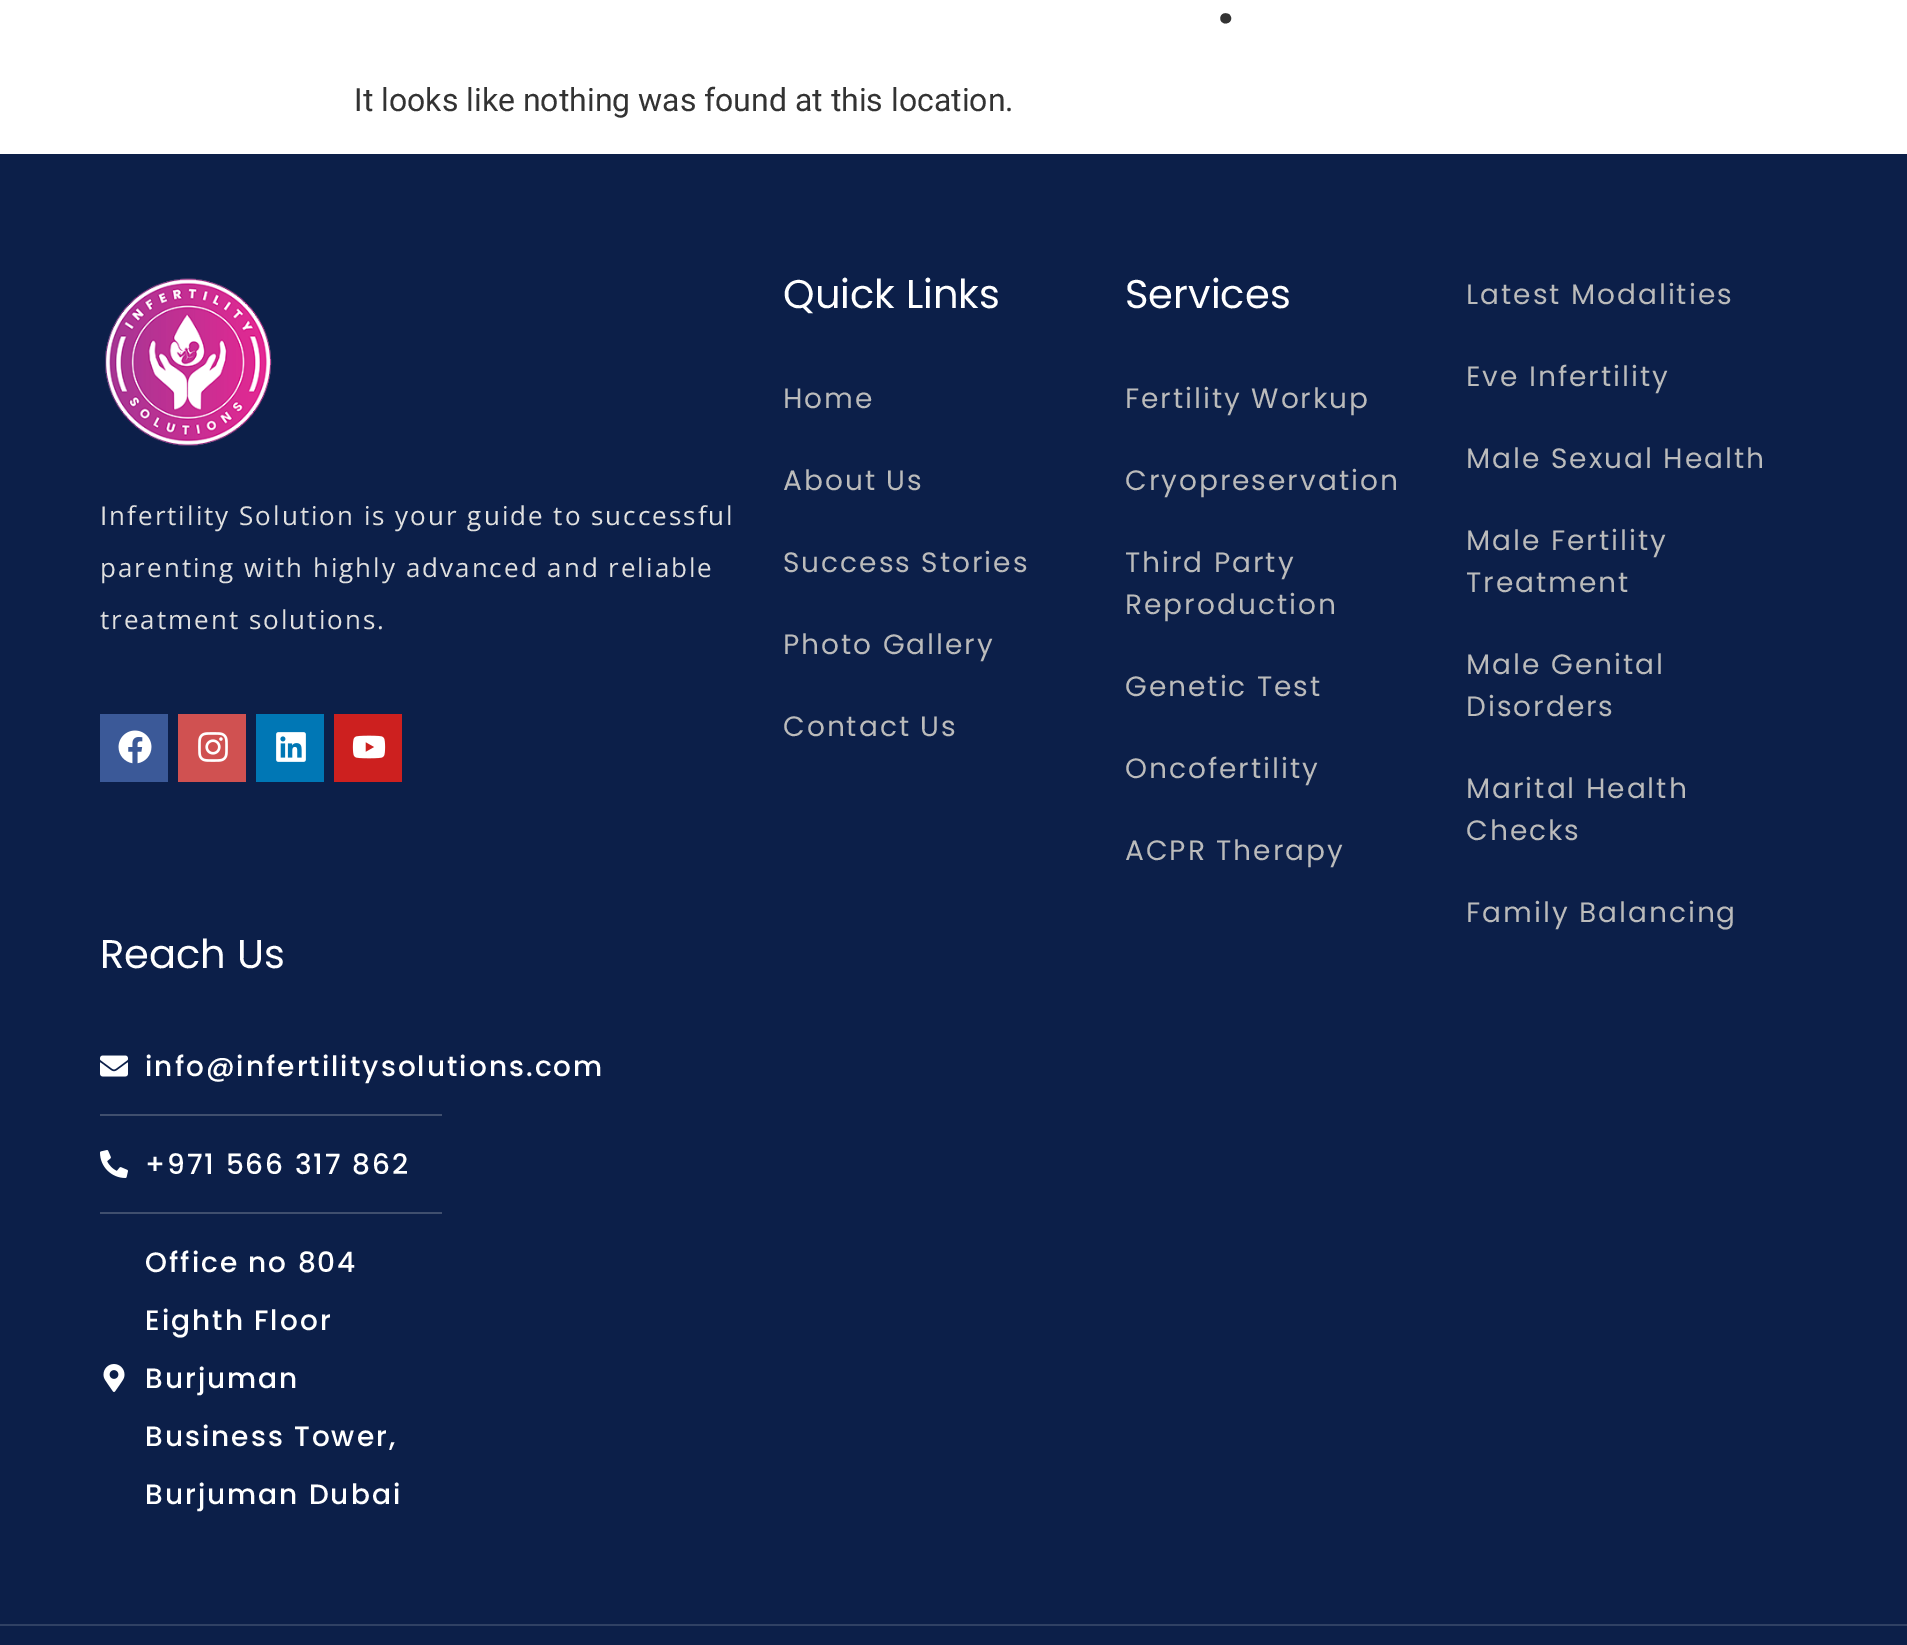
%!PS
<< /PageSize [1907 1645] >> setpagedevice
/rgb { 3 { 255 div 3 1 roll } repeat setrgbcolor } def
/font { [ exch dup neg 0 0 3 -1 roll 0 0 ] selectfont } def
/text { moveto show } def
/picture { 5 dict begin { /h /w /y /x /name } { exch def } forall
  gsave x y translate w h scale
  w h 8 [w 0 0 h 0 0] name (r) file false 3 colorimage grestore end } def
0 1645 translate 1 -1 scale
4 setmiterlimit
255 255 255 rgb
0 0 1907 1645 rectfill
12 31 73 rgb
0 154 1907 1491 rectfill
48 65 100 rgb
0 1624 1907 2 rectfill
(img_01.rgb) 105 278 167 168 picture
59 89 152 rgb
100 714 68 68 rectfill
(img_02.rgb) 118 730 34 34 picture
208 81 81 rgb
178 714 68 68 rectfill
(img_03.rgb) 198 732 30 30 picture
0 119 181 rgb
256 714 68 68 rectfill
(img_04.rgb) 276 732 30 30 picture
205 32 31 rgb
334 714 68 68 rectfill
(img_05.rgb) 352 735 34 24 picture
(img_06.rgb) 100 1055 28 22 picture
64 79 110 rgb
100 1114 342 2 rectfill
(img_07.rgb) 100 1150 28 28 picture
100 1212 342 2 rectfill
(img_08.rgb) 103 1364 22 28 picture
/Roboto-Medium 80 font
51 51 51 rgb
(.) 1215 23 text
/Roboto-Regular 32 font
(It looks like nothing was found at this location.) 354 111 text
/OpenSans-Regular 26 font
224 224 224 rgb
100 525 moveto 2 0 (Infertility Solution is your guide to successful) ashow
100 577 moveto 2 0 (parenting with highly advanced and reliable) ashow
100 629 moveto 2 0 (treatment solutions.) ashow
/Poppins-Regular 40 font
255 255 255 rgb
(Quick Links) 783 308 text
/Poppins-Regular 28 font
187 187 187 rgb
783 408 moveto 2 0 (Home) ashow
783 490 moveto 2 0 (About Us) ashow
783 572 moveto 2 0 (Success Stories) ashow
783 654 moveto 2 0 (Photo Gallery) ashow
783 736 moveto 2 0 (Contact Us) ashow
/Poppins-Regular 40 font
255 255 255 rgb
(Services) 1125 308 text
/Poppins-Regular 28 font
187 187 187 rgb
1125 408 moveto 2 0 (Fertility Workup) ashow
1125 490 moveto 2 0 (Cryopreservation) ashow
1125 572 moveto 2 0 (Third Party) ashow
1125 614 moveto 2 0 (Reproduction) ashow
1125 696 moveto 2 0 (Genetic Test) ashow
1125 778 moveto 2 0 (Oncofertility) ashow
1125 860 moveto 2 0 (ACPR Therapy) ashow
1466 304 moveto 2 0 (Latest Modalities) ashow
1466 386 moveto 2 0 (Eve Infertility) ashow
1466 468 moveto 2 0 (Male Sexual Health) ashow
1466 550 moveto 2 0 (Male Fertility) ashow
1466 592 moveto 2 0 (Treatment) ashow
1466 674 moveto 2 0 (Male Genital) ashow
1466 716 moveto 2 0 (Disorders) ashow
1466 798 moveto 2 0 (Marital Health) ashow
1466 840 moveto 2 0 (Checks) ashow
1466 922 moveto 2 0 (Family Balancing) ashow
/Poppins-Regular 40 font
255 255 255 rgb
(Reach Us) 100 968 text
/Poppins-Medium 28 font
145 1076 moveto 2 0 (info@infertilitysolutions.com) ashow
145 1174 moveto 2 0 (+971 566 317 862) ashow
145 1272 moveto 2 0 (Office no 804) ashow
145 1330 moveto 2 0 (Eighth Floor) ashow
145 1388 moveto 2 0 (Burjuman) ashow
145 1446 moveto 2 0 (Business Tower,) ashow
145 1504 moveto 2 0 (Burjuman Dubai) ashow
showpage
